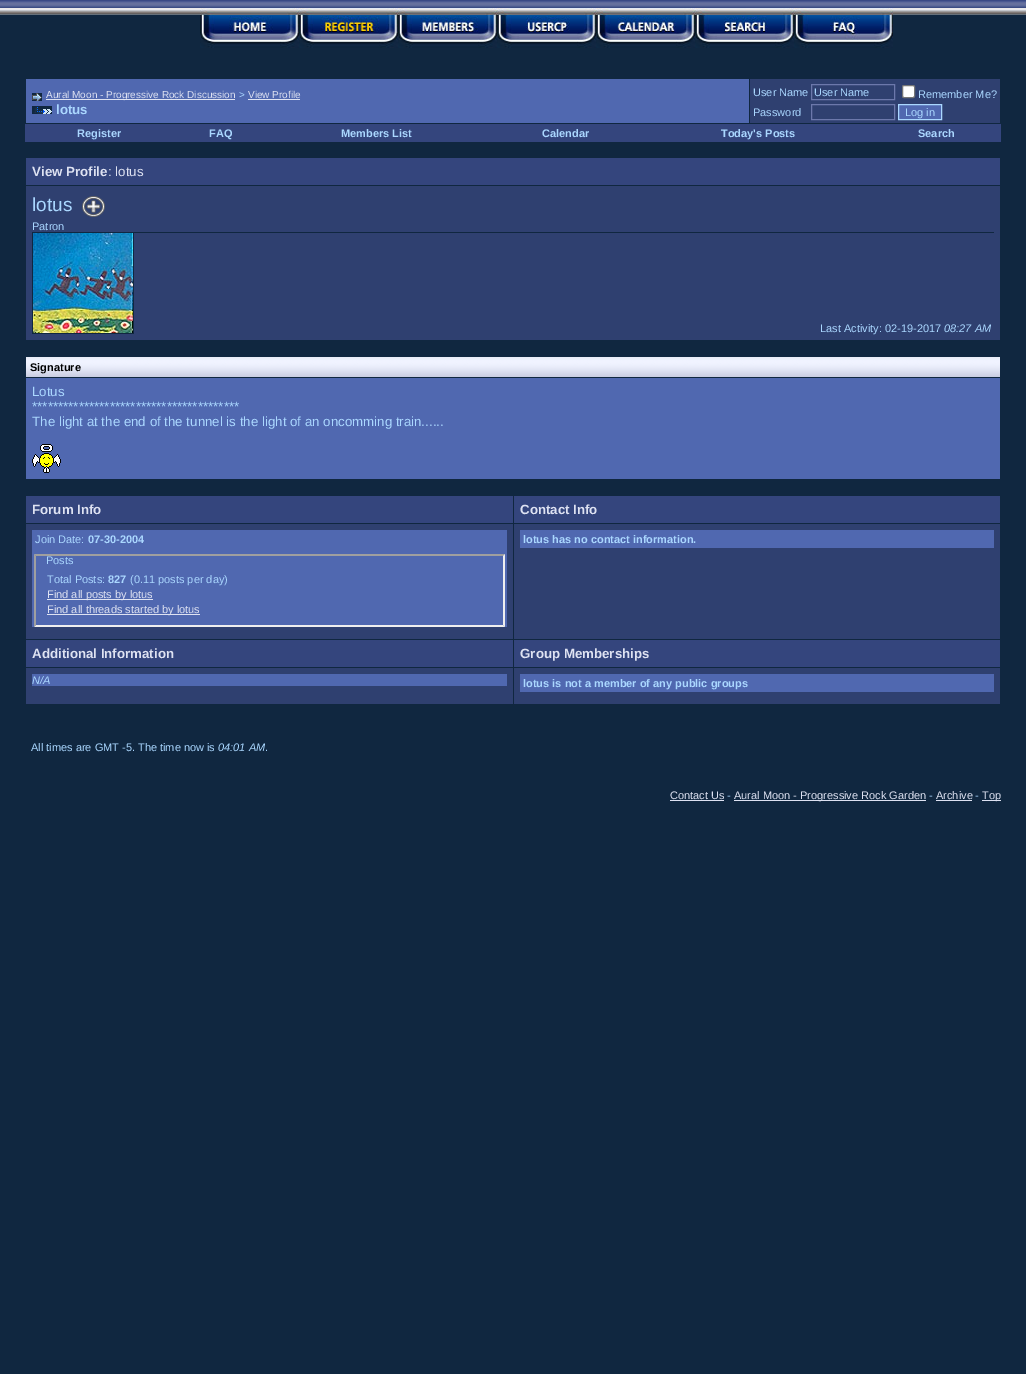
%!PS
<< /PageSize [1026 1374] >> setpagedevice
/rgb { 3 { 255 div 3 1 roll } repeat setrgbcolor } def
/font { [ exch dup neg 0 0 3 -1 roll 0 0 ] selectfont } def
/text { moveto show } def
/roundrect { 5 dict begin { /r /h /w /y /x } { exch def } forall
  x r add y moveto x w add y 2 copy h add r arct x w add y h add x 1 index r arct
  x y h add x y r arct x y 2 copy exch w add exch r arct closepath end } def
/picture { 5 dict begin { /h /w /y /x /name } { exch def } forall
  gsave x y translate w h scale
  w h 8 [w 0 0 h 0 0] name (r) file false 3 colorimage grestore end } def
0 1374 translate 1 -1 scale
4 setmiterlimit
16 39 64 rgb
0 0 1026 1374 rectfill
(img_01.rgb) 0 0 1026 15 picture
(img_02.rgb) 200 8 99 40 picture
(img_03.rgb) 299 8 99 40 picture
(img_04.rgb) 398 8 99 40 picture
(img_05.rgb) 497 8 99 40 picture
(img_06.rgb) 596 8 99 40 picture
(img_07.rgb) 695 8 99 40 picture
(img_08.rgb) 794 8 99 40 picture
80 104 176 rgb
26 79 723 44 rectfill
(img_09.rgb) 32 93 10 8 picture
222 226 242 rgb
46 99 189 1 rectfill
248 99 52 1 rectfill
(img_10.rgb) 32 106 20 8 picture
47 64 112 rgb
750 79 250 44 rectfill
108 120 171 rgb
811.5 84.5 83 15 rectstroke
255 255 255 rgb
902.5 85.5 12 12 1.5 roundrect gsave fill grestore
118 118 118 rgb
stroke
108 120 171 rgb
811.5 104.5 83 15 rectstroke
80 104 176 rgb
898.5 104.5 moveto 43 0 rlineto 0 15 rlineto -43 0 rlineto closepath gsave fill grestore
170 215 255 rgb
stroke
52 69 125 rgb
25 124 976 18 rectfill
26 158 974 27 rectfill
47 64 112 rgb
26 186 974 154 rectfill
16 39 64 rgb
32 232 962 1 rectfill
(img_11.rgb) 82 196 23 21 picture
133 233 1 101 rectfill
32 333 102 1 rectfill
32 233 1 101 rectfill
(img_12.rgb) 33 233 100 100 picture
(img_13.rgb) 26 357 974 20 picture
80 104 176 rgb
26 378 974 101 rectfill
(img_14.rgb) 32 444 29 29 picture
52 69 125 rgb
26 496 487 27 rectfill
514 496 486 27 rectfill
47 64 112 rgb
26 524 487 115 rectfill
80 104 176 rgb
32 530 475 97 rectfill
159 159 159 rgb
34 554 moveto 471 0 rlineto -2 2 rlineto -467 0 rlineto closepath fill
239 239 239 rgb
505 554 moveto 0 73 rlineto -2 -2 rlineto 0 -69 rlineto closepath fill
505 627 moveto -471 0 rlineto 2 -2 rlineto 467 0 rlineto closepath fill
159 159 159 rgb
34 627 moveto 0 -73 rlineto 2 2 rlineto 0 69 rlineto closepath fill
222 226 242 rgb
47 599 106 1 rectfill
47 614 153 1 rectfill
47 64 112 rgb
514 524 486 115 rectfill
80 104 176 rgb
520 530 474 18 rectfill
52 69 125 rgb
26 640 487 27 rectfill
514 640 486 27 rectfill
47 64 112 rgb
26 668 487 36 rectfill
80 104 176 rgb
32 674 475 12 rectfill
47 64 112 rgb
514 668 486 36 rectfill
80 104 176 rgb
520 674 474 18 rectfill
222 226 242 rgb
670 800 54 1 rectfill
734 800 192 1 rectfill
936 800 36 1 rectfill
982 800 19 1 rectfill
/LiberationSans-Regular 10 font
(Aural Moon - Progressive Rock Discussion) 46 98 text
170 215 255 rgb
(>) 239 98 text
222 226 242 rgb
(View Profile) 248 98 text
/LiberationSans-Bold 13.3 font
170 215 255 rgb
(lotus) 56 114 text
/LiberationSans-Regular 11 font
(User Name) 753 96 text
(User Name) 814 96 text
(Remember Me?) 918 98 text
(Password) 753 116 text
(Log in) 905 116 text
/LiberationSans-Bold 11 font
(Register) 77 137 text
(FAQ) 209 137 text
(Members List) 341 137 text
(Calendar) 542 137 text
(Today's Posts) 721 137 text
(Search) 918 137 text
/LiberationSans-Bold 13.3 font
222 226 242 rgb
(View Profile) 32 176 text
/LiberationSans-Regular 13.3 font
(: lotus) 108 176 text
/LiberationSans-Regular 19 font
170 215 255 rgb
(lotus) 32 211 text
/LiberationSans-Regular 11 font
(Patron) 32 230 text
(Last Activity: 02-19-2017) 820 332 text
/LiberationSans-Italic 11 font
(08:27 AM) 944 332 text
/LiberationSans-Bold 11 font
0 0 0 rgb
(Signature) 30 371 text
/LiberationSans-Regular 13.3 font
170 215 255 rgb
(Lotus) 32 396 text
(****************************************) 32 411 text
(The light at the end of the tunnel is the light of an oncomming train......) 32 426 text
/LiberationSans-Bold 13.3 font
222 226 242 rgb
(Forum Info) 32 514 text
(Contact Info) 520 514 text
/LiberationSans-Regular 11 font
170 215 255 rgb
(Join Date:) 35 543 text
/LiberationSans-Bold 11 font
(07-30-2004) 88 543 text
/LiberationSans-Regular 11 font
(Posts) 46 564 text
(Total Posts:) 47 583 text
/LiberationSans-Bold 11 font
(827) 108 583 text
/LiberationSans-Regular 11 font
(\(0.11 posts per day\)) 130 583 text
222 226 242 rgb
(Find all posts by lotus) 47 598 text
(Find all threads started by lotus) 47 613 text
/LiberationSans-Bold 11 font
170 215 255 rgb
(lotus has no contact information.) 523 543 text
/LiberationSans-Bold 13.3 font
222 226 242 rgb
(Additional Information) 32 658 text
(Group Memberships) 520 658 text
/LiberationSans-Italic 11 font
170 215 255 rgb
(N/A) 32 684 text
/LiberationSans-Bold 11 font
(lotus is not a member of any public groups) 523 687 text
/LiberationSans-Regular 11 font
(All times are GMT -5. The time now is) 31 751 text
/LiberationSans-Italic 11 font
(04:01 AM) 218 751 text
/LiberationSans-Regular 11 font
(.) 265 751 text
222 226 242 rgb
(Contact Us) 670 799 text
170 215 255 rgb
(-) 727 799 text
222 226 242 rgb
(Aural Moon - Progressive Rock Garden) 734 799 text
170 215 255 rgb
(-) 929 799 text
222 226 242 rgb
(Archive) 936 799 text
170 215 255 rgb
(-) 975 799 text
222 226 242 rgb
(Top) 982 799 text
showpage
